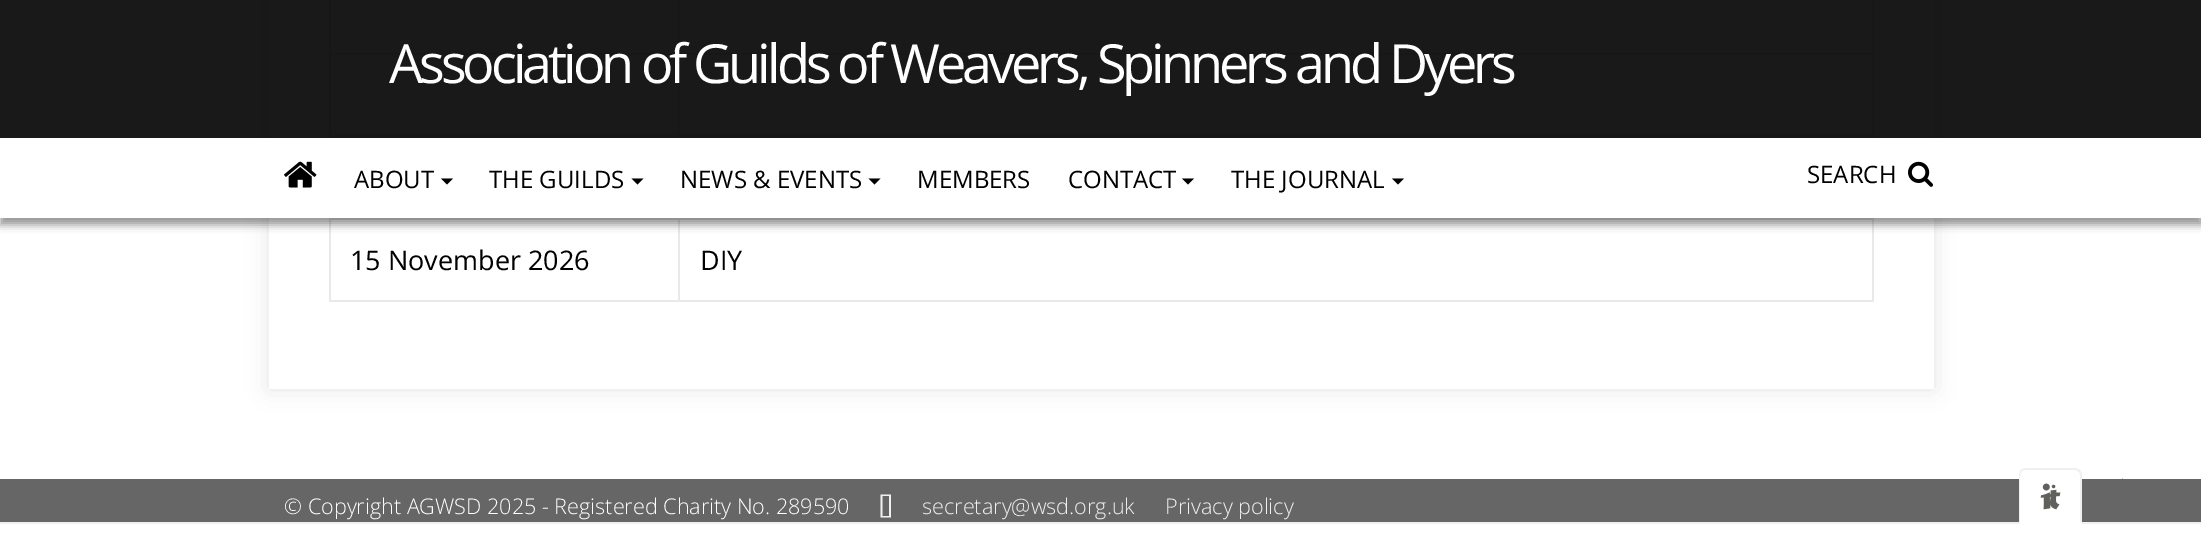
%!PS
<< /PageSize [2201 537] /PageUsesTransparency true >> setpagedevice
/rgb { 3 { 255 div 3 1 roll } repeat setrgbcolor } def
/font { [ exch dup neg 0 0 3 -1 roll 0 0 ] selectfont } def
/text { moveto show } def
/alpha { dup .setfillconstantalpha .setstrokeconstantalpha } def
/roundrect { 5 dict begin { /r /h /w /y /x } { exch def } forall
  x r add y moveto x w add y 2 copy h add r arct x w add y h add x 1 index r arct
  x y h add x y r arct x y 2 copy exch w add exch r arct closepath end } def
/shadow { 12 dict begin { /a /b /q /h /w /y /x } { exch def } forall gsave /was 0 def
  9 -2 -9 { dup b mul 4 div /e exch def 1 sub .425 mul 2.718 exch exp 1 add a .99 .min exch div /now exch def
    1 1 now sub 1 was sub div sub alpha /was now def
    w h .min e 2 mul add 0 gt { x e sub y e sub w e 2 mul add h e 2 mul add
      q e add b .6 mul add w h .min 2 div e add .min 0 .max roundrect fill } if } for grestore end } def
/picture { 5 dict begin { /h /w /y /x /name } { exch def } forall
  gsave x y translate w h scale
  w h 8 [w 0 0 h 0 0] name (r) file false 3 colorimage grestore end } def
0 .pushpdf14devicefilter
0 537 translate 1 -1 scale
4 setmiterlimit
102 102 102 rgb
0 0 2201 537 rectfill
255 255 255 rgb
0 0 2201 479 rectfill
0 0 0 rgb
269 -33 1665 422 0 11 0.11 shadow
255 255 255 rgb
269 0 1665 389 rectfill
233 233 233 rgb
1872 0 2 53 rectfill
329 0 2 53 rectfill
1872 53 2 85 rectfill
678 135 2 3 rectfill
678 135 1196 2 rectfill
678 53 2 84 rectfill
678 53 1196 2 rectfill
678 0 2 54 rectfill
329 300 1545 2 rectfill
678 218 2 84 rectfill
329 218 2 84 rectfill
1872 218 2 84 rectfill
329 218 1545 2 rectfill
329 135 2 84 rectfill
329 135 351 2 rectfill
329 53 2 84 rectfill
329 53 351 2 rectfill
0.9 alpha
0 0 0 rgb
0 0 2201 138 rectfill
1 alpha
0 146 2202 79 0 4 0.4 shadow
255 255 255 rgb
0 138 2201 80 rectfill
(img_01.rgb) 284 161 33 27 picture
0 0 0 rgb
441 178.5 moveto 12 0 rlineto -6 6 rlineto closepath fill
631.5 178.5 moveto 12 0 rlineto -6 6 rlineto closepath fill
868.5 178.5 moveto 12 0 rlineto -6 6 rlineto closepath fill
1182 178.5 moveto 12 0 rlineto -6 6 rlineto closepath fill
1392 178.5 moveto 12 0 rlineto -6 6 rlineto closepath fill
(img_02.rgb) 1908 161 25 26 picture
255 255 255 rgb
0 524 2201 13 rectfill
240 240 240 rgb
0 522 2201 2 rectfill
255 255 255 rgb
2027 468 moveto 47 0 rlineto 4.5 0 8 3.5 8 8 rcurveto 0 48 rlineto -63 0 rlineto 0 -48 rlineto 0 -4.5 3.5 -8 8 -8 rcurveto closepath fill
240 240 240 rgb
2026 468 moveto -2 0 -4 1 -5 2 rcurveto 1 1 rlineto 1 -1 3 -1 4 -1 rcurveto 48 0 rlineto 2 0 4 0 4 2 rcurveto 2 -2 rlineto -2 -1 -4 -2 -6 -2 rcurveto closepath fill
2082 524 moveto 0 -48 rlineto 0 -2 -1 -4 -2 -6 rcurveto -2 2 rlineto 2 0 2 2 2 4 rcurveto 0 46 rlineto closepath fill
255 255 255 rgb
2082 524 moveto -63 0 rlineto 1 -2 rlineto 60 0 rlineto closepath fill
240 240 240 rgb
2019 524 moveto 1 -2 rlineto 0 -46 rlineto 0 -2 1 -4 2 -5 rcurveto -1 -1 rlineto -1 1 -2 3 -2 6 rcurveto closepath fill
(img_03.rgb) 2040 483 21 27 picture
102 102 102 rgb
2140.5 496.5 moveto -6 6 rlineto -12 -11.5 rlineto -12 11.5 rlineto -6 -6 rlineto 18 -18 rlineto closepath fill
240 240 240 rgb
882.5 516 moveto 6.5 0 rlineto 0 -20 rlineto -6.5 0 rlineto closepath 880.5 517.5 moveto 0 -23 rlineto 10.5 0 rlineto 0 23 rlineto closepath fill
/OpenSans-Regular 54 font
255 255 255 rgb
389 83 moveto -4.05 0 (Association of Guilds of Weavers, Spinners and Dyers) ashow
/OpenSans-Regular 24 font
0 0 0 rgb
(ABOUT) 354 188 text
(THE GUILDS) 489 188 text
(NEWS & EVENTS) 680 188 text
(MEMBERS) 917 188 text
(CONTACT) 1068 188 text
(THE JOURNAL) 1231 188 text
(SEARCH) 1807 183 text
/OpenSans-Regular 27 font
(15 November 2026) 350 270 text
(DIY) 700 270 text
/OpenSans-Light 21.6 font
255 255 255 rgb
(© Copyright AGWSD 2025 - Registered Charity No. 289590) 284 514 text
240 240 240 rgb
(secretary@wsd.org.uk) 922 514 text
(Privacy policy) 1165 514 text
.poppdf14devicefilter showpage
